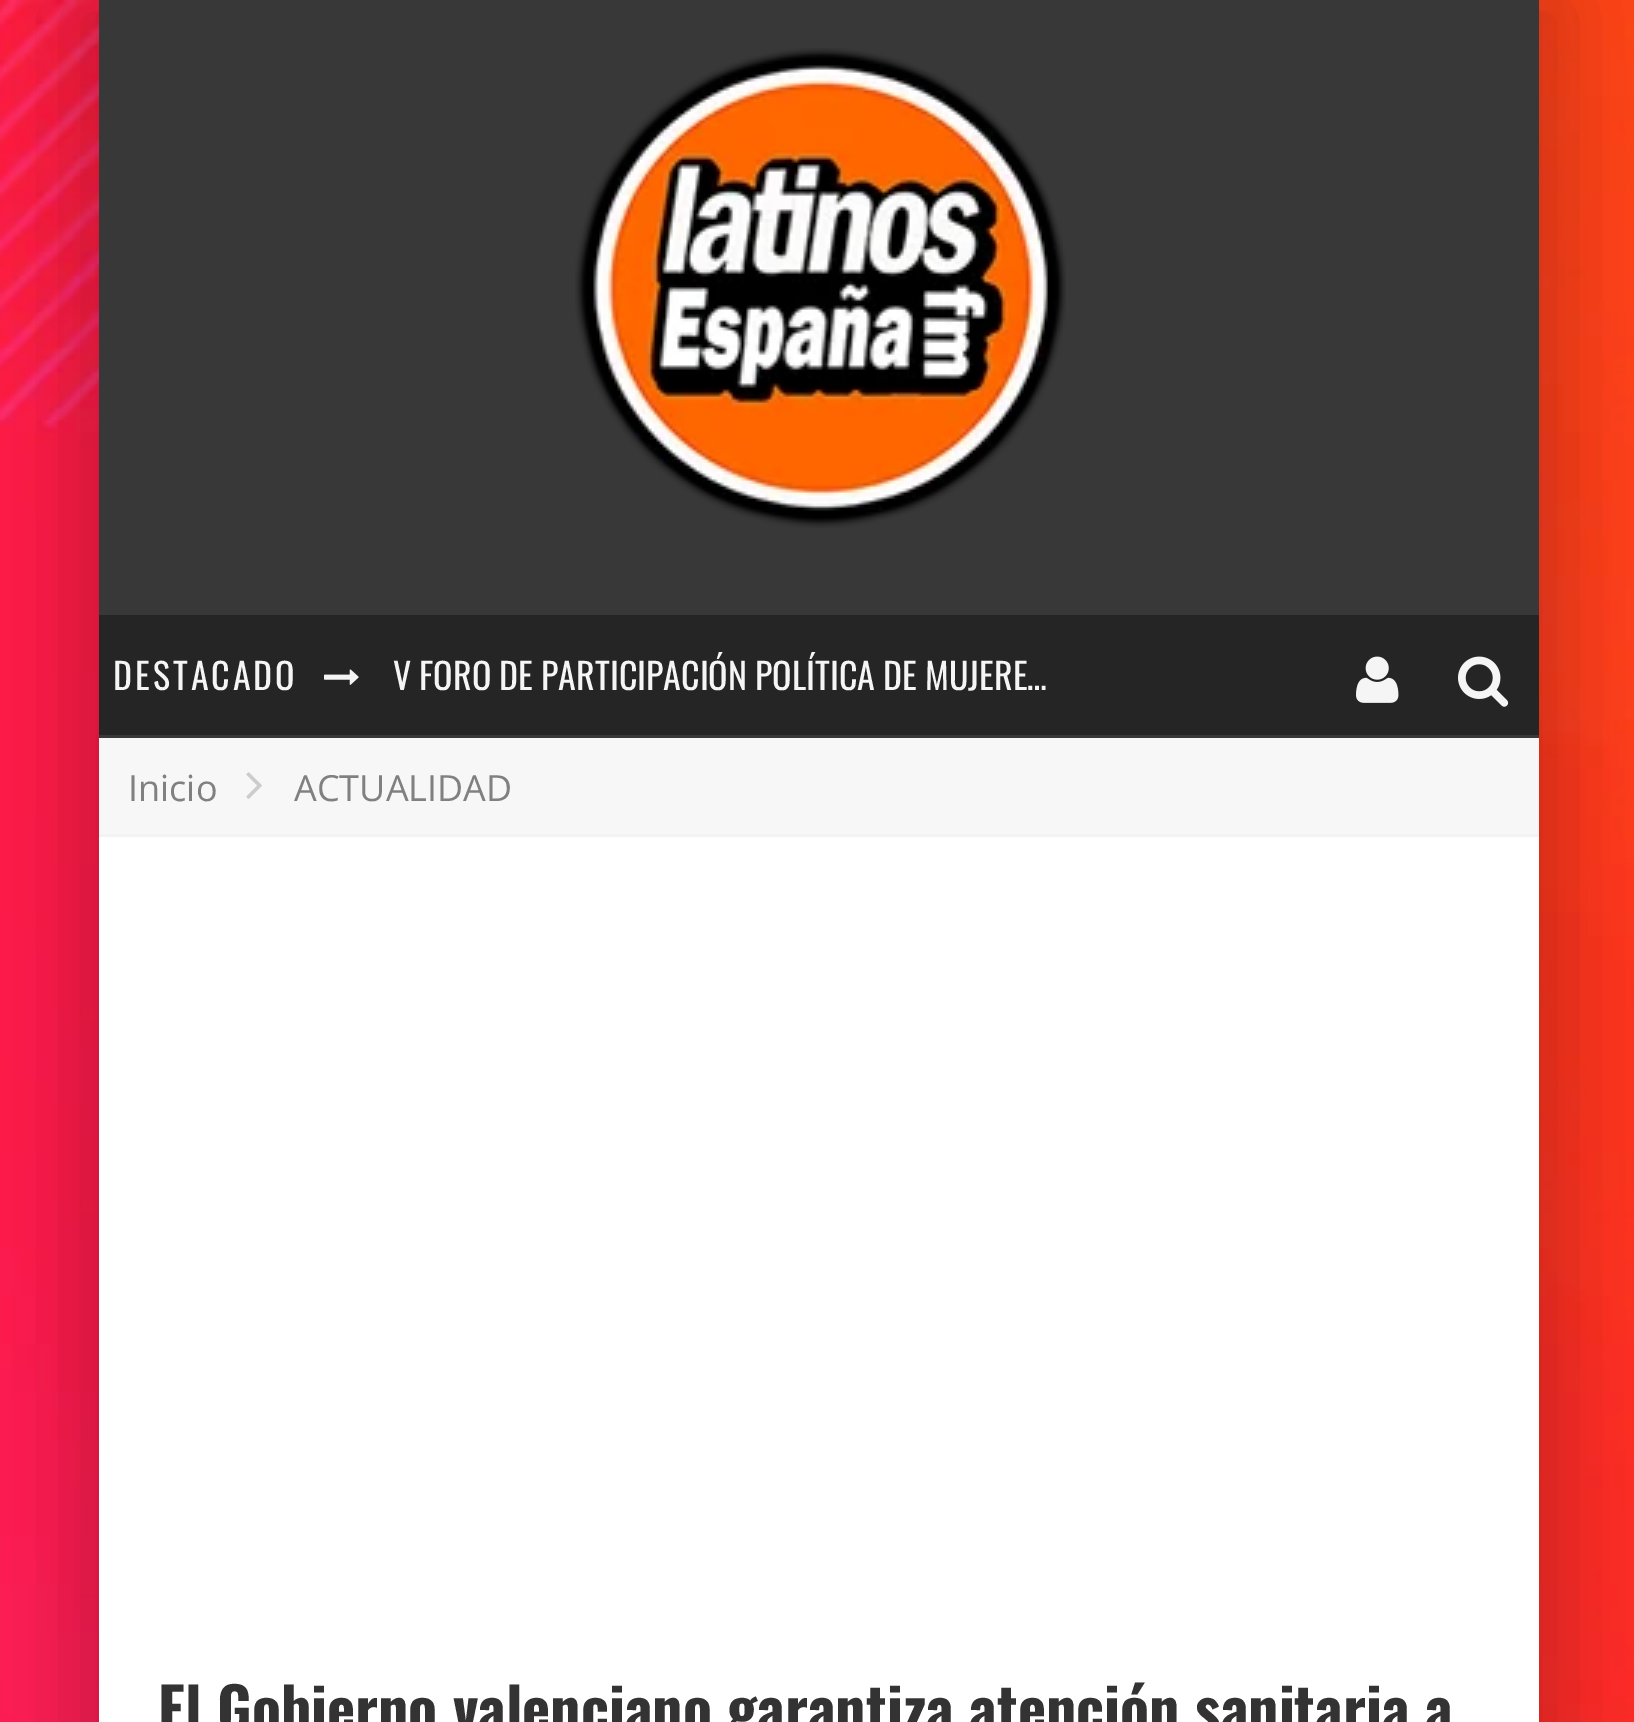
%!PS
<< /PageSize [1634 1722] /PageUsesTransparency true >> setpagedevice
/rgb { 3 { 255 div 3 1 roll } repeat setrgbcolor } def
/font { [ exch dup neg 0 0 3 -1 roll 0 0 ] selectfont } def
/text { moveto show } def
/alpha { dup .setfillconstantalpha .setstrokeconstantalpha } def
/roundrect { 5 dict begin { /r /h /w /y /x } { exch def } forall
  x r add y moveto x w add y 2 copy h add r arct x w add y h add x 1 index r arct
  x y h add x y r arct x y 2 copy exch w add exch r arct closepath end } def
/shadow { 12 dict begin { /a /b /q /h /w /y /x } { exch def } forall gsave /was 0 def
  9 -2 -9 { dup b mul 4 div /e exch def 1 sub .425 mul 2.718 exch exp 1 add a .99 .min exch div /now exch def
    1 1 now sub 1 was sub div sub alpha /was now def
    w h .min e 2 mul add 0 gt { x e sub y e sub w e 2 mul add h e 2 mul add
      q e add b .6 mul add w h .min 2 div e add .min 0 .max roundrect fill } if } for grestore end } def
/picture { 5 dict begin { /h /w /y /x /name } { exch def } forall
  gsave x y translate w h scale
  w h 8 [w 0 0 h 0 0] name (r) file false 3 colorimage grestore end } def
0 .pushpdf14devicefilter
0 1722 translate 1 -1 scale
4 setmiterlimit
255 255 255 rgb
0 0 1634 1722 rectfill
(img_01.rgb) 0 0 1634 1722 picture
0 0 0 rgb
69 0 1440 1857 0 45 0.15 shadow
129 0 1440 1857 0 45 0.15 shadow
56 56 56 rgb
99 0 1440 738 rectfill
(img_02.rgb) 575 48 491 480 picture
37 37 37 rgb
99 615 1440 120 rectfill
(img_03.rgb) 324 669 35 16 picture
(img_04.rgb) 1356 656 43 47 picture
(img_05.rgb) 1458 656 51 51 picture
247 247 247 rgb
99 738 1440 96 rectfill
243 243 243 rgb
99 834 1440 3 rectfill
(img_06.rgb) 246 772 16 27 picture
255 255 255 rgb
99 837 1440 885 rectfill
/Oswald-Regular 36 font
245 245 245 rgb
113 690 moveto 3 0 (DESTACADO) ashow
(V FORO DE PARTICIPACIÓN POLÍTICA DE MUJERE…) 393 690 text
/OpenSans-Regular 36 font
128 128 128 rgb
(Inicio) 128 801 text
(ACTUALIDAD) 294 801 text
/Oswald-Bold 60 font
51 51 51 rgb
(El Gobierno valenciano garantiza atención sanitaria a) 158 1733 text
.poppdf14devicefilter showpage
